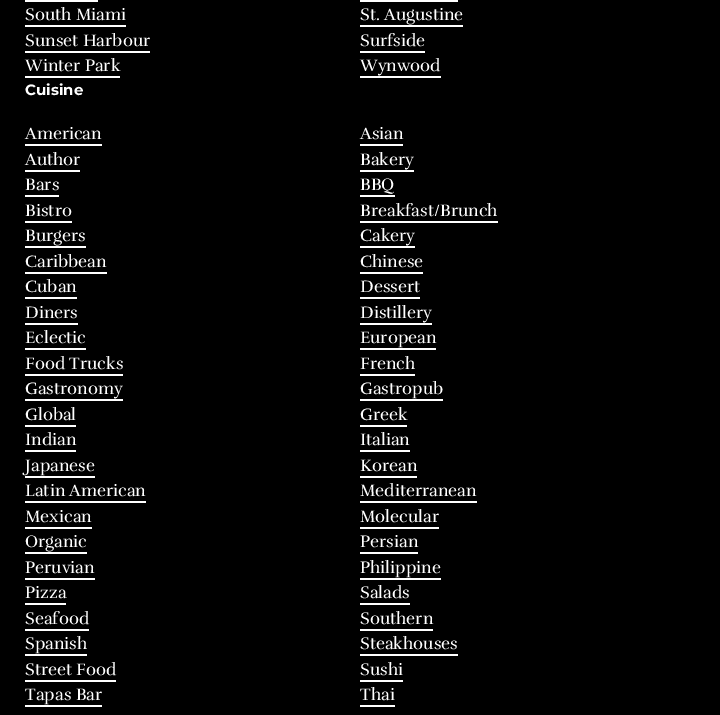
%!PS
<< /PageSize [720 715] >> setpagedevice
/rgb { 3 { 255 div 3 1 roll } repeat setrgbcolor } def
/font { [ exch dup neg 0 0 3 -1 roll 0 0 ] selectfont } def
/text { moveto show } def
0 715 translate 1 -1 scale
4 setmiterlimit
0 0 0 rgb
0 0 720 715 rectfill
255 255 255 rgb
25 0 73 2 rectfill
360 0 98 2 rectfill
25 25 101 2 rectfill
360 25 103 2 rectfill
25 51 125 2 rectfill
360 51 65 2 rectfill
25 76 95 2 rectfill
360 76 81 2 rectfill
25 144 77 2 rectfill
360 144 43 2 rectfill
25 170 55 2 rectfill
360 170 54 2 rectfill
25 195 34 2 rectfill
360 195 35 2 rectfill
25 221 47 2 rectfill
360 221 138 2 rectfill
25 246 61 2 rectfill
360 246 55 2 rectfill
25 272 82 2 rectfill
360 272 63 2 rectfill
25 297 52 2 rectfill
360 297 60 2 rectfill
25 323 53 2 rectfill
360 323 72 2 rectfill
25 348 61 2 rectfill
360 348 76 2 rectfill
25 374 98 2 rectfill
360 374 55 2 rectfill
25 399 98 2 rectfill
360 399 83 2 rectfill
25 425 51 2 rectfill
360 425 47 2 rectfill
25 450 51 2 rectfill
360 450 50 2 rectfill
25 476 70 2 rectfill
360 476 57 2 rectfill
25 501 121 2 rectfill
360 501 117 2 rectfill
25 527 67 2 rectfill
360 527 79 2 rectfill
25 552 62 2 rectfill
360 552 58 2 rectfill
25 578 70 2 rectfill
360 578 81 2 rectfill
25 603 41 2 rectfill
360 603 50 2 rectfill
25 629 64 2 rectfill
360 629 73 2 rectfill
25 654 62 2 rectfill
360 654 98 2 rectfill
25 680 91 2 rectfill
360 680 43 2 rectfill
25 705 77 2 rectfill
360 705 35 2 rectfill
/Rufina-Regular 17 font
(South Miami) 25 20 text
(St. Augustine) 360 20 text
(Sunset Harbour) 25 46 text
(Surfside) 360 46 text
(Winter Park) 25 71 text
(Wynwood) 360 71 text
/Montserrat-Bold 15 font
(Cuisine) 25 95 text
/Rufina-Regular 17 font
(American) 25 139 text
(Asian) 360 139 text
(Author) 25 165 text
(Bakery) 360 165 text
(Bars) 25 190 text
(BBQ) 360 190 text
(Bistro) 25 216 text
(Breakfast/Brunch) 360 216 text
(Burgers) 25 241 text
(Cakery) 360 241 text
(Caribbean) 25 267 text
(Chinese) 360 267 text
(Cuban) 25 292 text
(Dessert) 360 292 text
(Diners) 25 318 text
(Distillery) 360 318 text
(Eclectic) 25 343 text
(European) 360 343 text
(Food Trucks) 25 369 text
(French) 360 369 text
(Gastronomy) 25 394 text
(Gastropub) 360 394 text
(Global) 25 420 text
(Greek) 360 420 text
(Indian) 25 445 text
(Italian) 360 445 text
(Japanese) 25 471 text
(Korean) 360 471 text
(Latin American) 25 496 text
(Mediterranean) 360 496 text
(Mexican) 25 522 text
(Molecular) 360 522 text
(Organic) 25 547 text
(Persian) 360 547 text
(Peruvian) 25 573 text
(Philippine) 360 573 text
(Pizza) 25 598 text
(Salads) 360 598 text
(Seafood) 25 624 text
(Southern) 360 624 text
(Spanish) 25 649 text
(Steakhouses) 360 649 text
(Street Food) 25 675 text
(Sushi) 360 675 text
(Tapas Bar) 25 700 text
(Thai) 360 700 text
showpage
